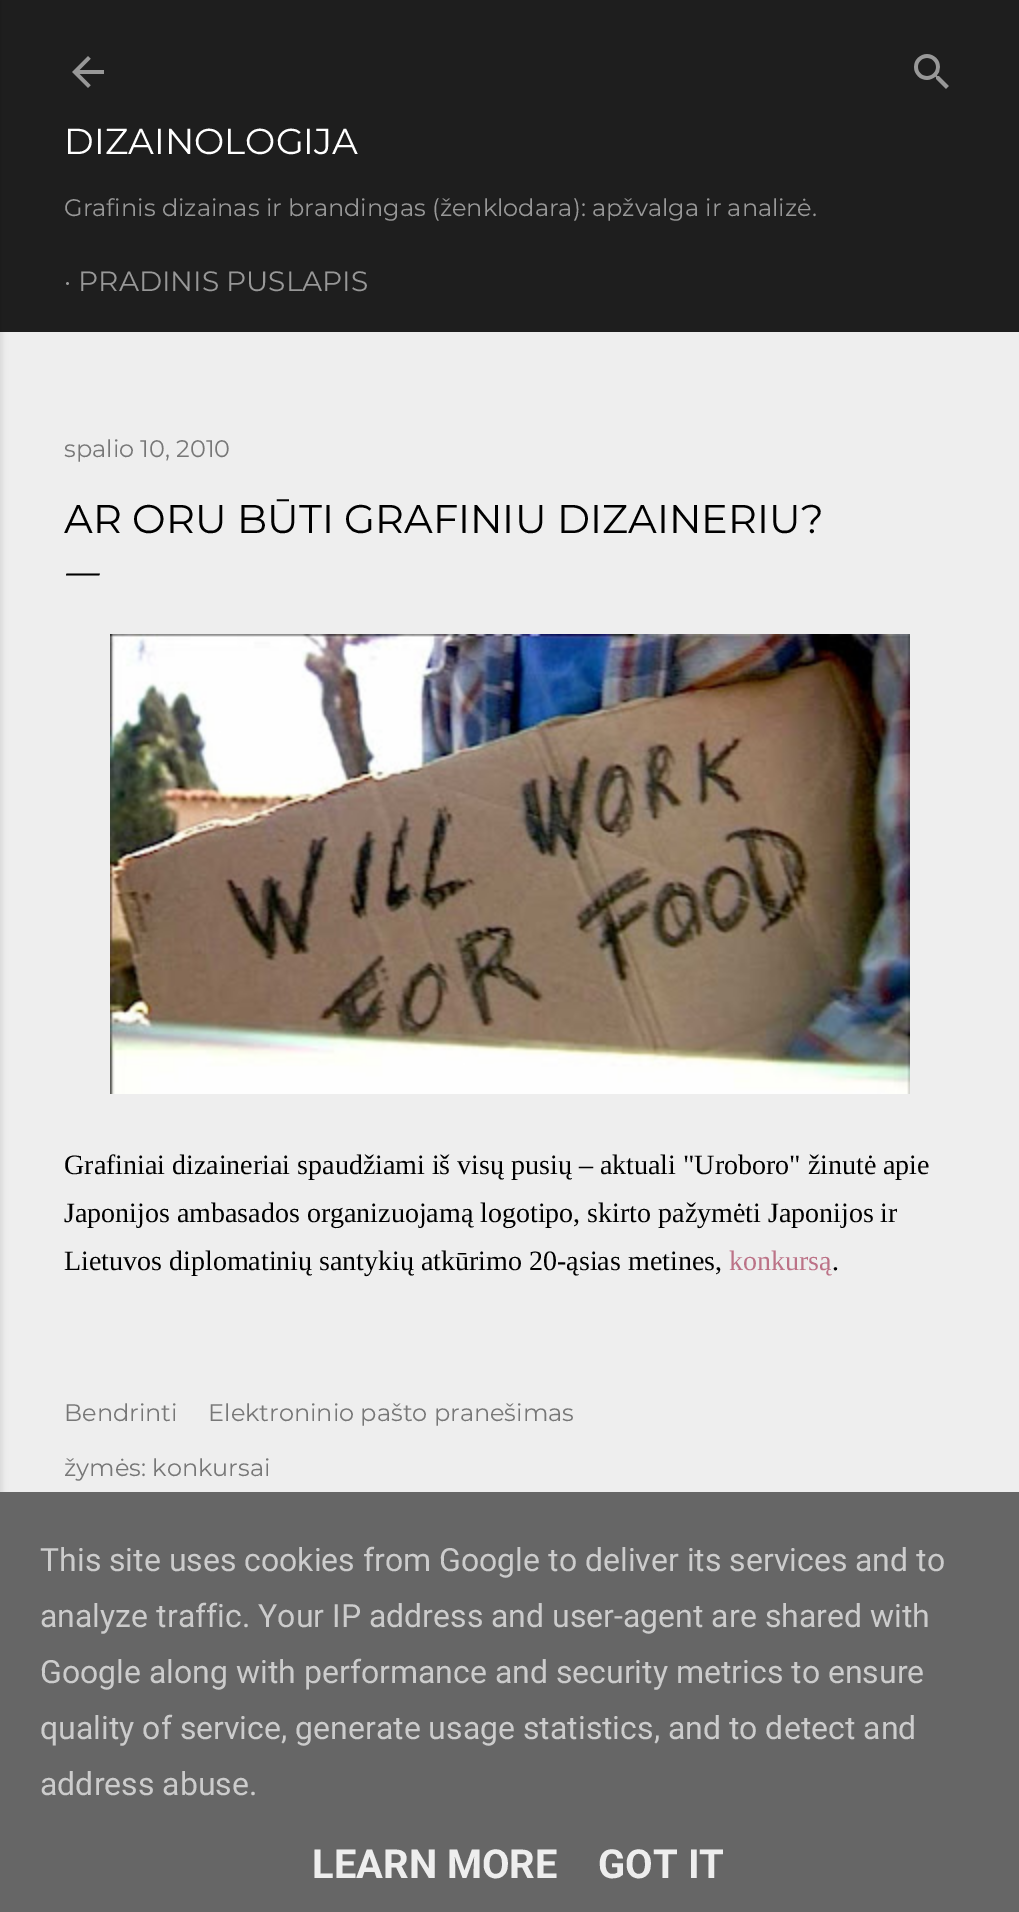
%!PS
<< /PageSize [1019 1912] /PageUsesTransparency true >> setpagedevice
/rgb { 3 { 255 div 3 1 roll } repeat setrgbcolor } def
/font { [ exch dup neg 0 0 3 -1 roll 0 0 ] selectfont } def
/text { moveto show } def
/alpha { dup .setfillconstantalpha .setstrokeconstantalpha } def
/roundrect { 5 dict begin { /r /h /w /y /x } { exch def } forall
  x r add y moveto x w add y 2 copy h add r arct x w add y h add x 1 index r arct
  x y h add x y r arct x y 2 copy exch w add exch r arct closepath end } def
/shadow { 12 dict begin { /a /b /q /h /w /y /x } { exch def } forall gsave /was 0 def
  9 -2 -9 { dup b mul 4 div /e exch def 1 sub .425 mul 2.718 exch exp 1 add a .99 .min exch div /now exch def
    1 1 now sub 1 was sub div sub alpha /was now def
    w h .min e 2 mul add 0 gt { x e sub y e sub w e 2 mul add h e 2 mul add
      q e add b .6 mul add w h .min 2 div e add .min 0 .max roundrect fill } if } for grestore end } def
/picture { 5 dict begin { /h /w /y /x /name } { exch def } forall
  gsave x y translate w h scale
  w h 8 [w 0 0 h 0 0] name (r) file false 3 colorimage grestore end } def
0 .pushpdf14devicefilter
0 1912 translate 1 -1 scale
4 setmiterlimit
238 238 238 rgb
0 0 1019 1912 rectfill
30 30 30 rgb
0 0 1019 332 rectfill
0 0 0 rgb
-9 0 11 1912 0 3 0.1 shadow
(img_01.rgb) 72 56 32 32 picture
(img_02.rgb) 914 54 35 35 picture
(img_03.rgb) 110 634 800 460 picture
102 102 102 rgb
0 1492 1019 420 rectfill
/Montserrat-Regular 36 font
255 255 255 rgb
(DIZAINOLOGIJA) 64 154 text
/Montserrat-Regular 24 font
152 152 152 rgb
(Grafinis dizainas ir brandingas \(ženklodara\): apžvalga ir analizė.) 64 216 text
/Montserrat-Regular 28 font
(· PRADINIS PUSLAPIS) 64 291 text
/Montserrat-Regular 24 font
119 119 119 rgb
(spalio 10, 2010) 64 457 text
/Montserrat-Regular 40 font
0 0 0 rgb
(AR ORU BŪTI GRAFINIU DIZAINERIU?) 64 533 text
/EBGaramond-Regular 40 font
(—) 64 583 text
/LiberationSerif-Regular 28 font
(Grafiniai dizaineriai spaudžiami iš visų pusių – aktuali "Uroboro" žinutė apie) 64 1174 text
(Japonijos ambasados organizuojamą logotipo, skirto pažymėti Japonijos ir) 64 1222 text
(Lietuvos diplomatinių santykių atkūrimo 20-ąsias metines,) 64 1270 text
188 114 135 rgb
(konkursą) 729 1270 text
0 0 0 rgb
(.) 832 1270 text
/Montserrat-Regular 24 font
119 119 119 rgb
(Bendrinti) 64 1421 text
(Elektroninio pašto pranešimas) 208 1421 text
(žymės: konkursai) 64 1476 text
/Roboto-Regular 32 font
204 204 204 rgb
(This site uses cookies from Google to deliver its services and to) 40 1571 text
(analyze traffic. Your IP address and user-agent are shared with) 40 1627 text
(Google along with performance and security metrics to ensure) 40 1683 text
(quality of service, generate usage statistics, and to detect and) 40 1739 text
(address abuse.) 40 1795 text
/Roboto-Bold 40 font
238 238 238 rgb
(LEARN MORE) 312 1878 text
(GOT IT) 598 1878 text
.poppdf14devicefilter showpage
